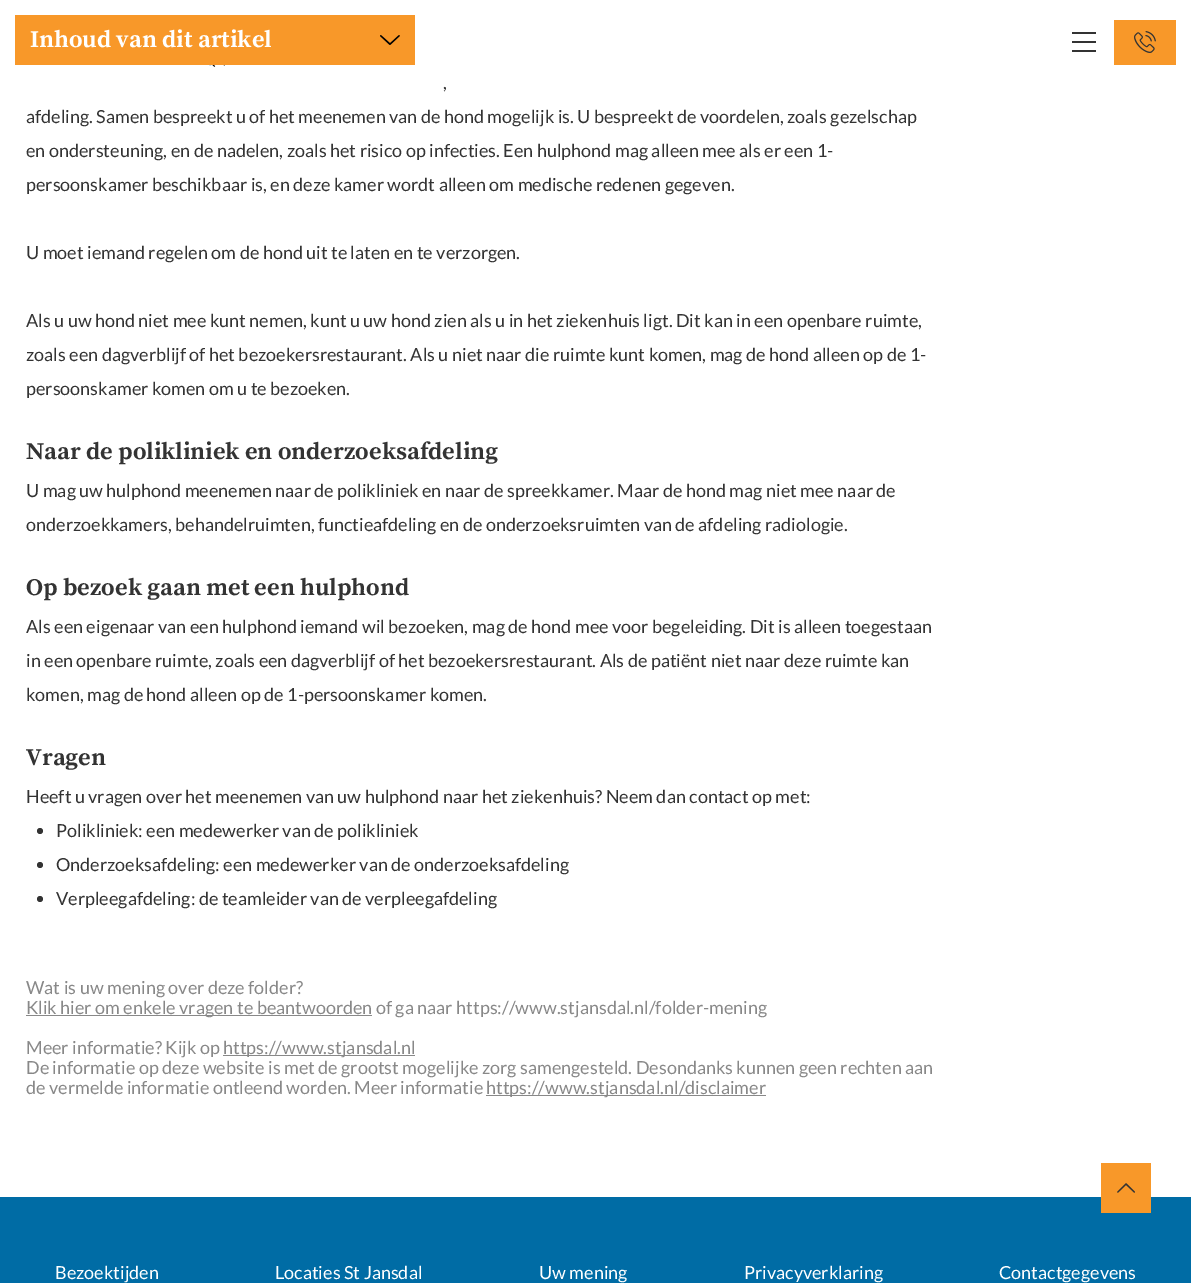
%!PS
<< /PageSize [1191 1283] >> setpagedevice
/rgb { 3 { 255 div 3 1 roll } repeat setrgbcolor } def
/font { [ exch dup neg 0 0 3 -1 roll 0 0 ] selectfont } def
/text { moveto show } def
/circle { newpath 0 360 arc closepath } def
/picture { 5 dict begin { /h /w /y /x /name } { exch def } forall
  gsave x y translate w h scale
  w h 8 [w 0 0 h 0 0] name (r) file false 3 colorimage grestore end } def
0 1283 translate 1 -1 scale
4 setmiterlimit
255 255 255 rgb
0 0 1191 1283 rectfill
51 51 51 rgb
1072 32 24 2 rectfill
1072 41 24 2 rectfill
1072 50 24 2 rectfill
248 152 41 rgb
1114 20 62 45 rectfill
(img_01.rgb) 1134 31 22 22 picture
(img_02.rgb) 209 65 16 2 picture
15 15 400 50 rectfill
(img_03.rgb) 380 35 20 10 picture
51 51 51 rgb
40 831 3 circle fill
40 865 3 circle fill
40 899 3 circle fill
136 136 136 rgb
26 1015 346 1 rectfill
223 1055 192 1 rectfill
486 1095 280 1 rectfill
0 108 165 rgb
0 1197 1191 86 rectfill
248 152 41 rgb
1101 1163 50 50 rectfill
(img_04.rgb) 1117 1183 18 10 picture
/SourceSerifPro-Bold 24 font
255 255 255 rgb
(Inhoud van dit artikel) 30 47 text
/Lato-Regular 18 font
51 51 51 rgb
(,) 443 89 text
(afdeling. Samen bespreekt u of het meenemen van de hond mogelijk is. U bespreekt de voordelen, zoals gezelschap) 26 123 text
(en ondersteuning, en de nadelen, zoals het risico op infecties. Een hulphond mag alleen mee als er een 1-) 26 157 text
(persoonskamer beschikbaar is, en deze kamer wordt alleen om medische redenen gegeven.) 26 191 text
(U moet iemand regelen om de hond uit te laten en te verzorgen.) 26 259 text
(Als u uw hond niet mee kunt nemen, kunt u uw hond zien als u in het ziekenhuis ligt. Dit kan in een openbare ruimte,) 26 327 text
(zoals een dagverblijf of het bezoekersrestaurant. Als u niet naar die ruimte kunt komen, mag de hond alleen op de 1-) 26 361 text
(persoonskamer komen om u te bezoeken.) 26 395 text
/SourceSerifPro-Bold 24 font
(Naar de polikliniek en onderzoeksafdeling) 26 459 text
/Lato-Regular 18 font
(U mag uw hulphond meenemen naar de polikliniek en naar de spreekkamer. Maar de hond mag niet mee naar de) 26 497 text
(onderzoekkamers, behandelruimten, functieafdeling en de onderzoeksruimten van de afdeling radiologie.) 26 531 text
/SourceSerifPro-Bold 24 font
(Op bezoek gaan met een hulphond) 26 595 text
/Lato-Regular 18 font
(Als een eigenaar van een hulphond iemand wil bezoeken, mag de hond mee voor begeleiding. Dit is alleen toegestaan) 26 633 text
(in een openbare ruimte, zoals een dagverblijf of het bezoekersrestaurant. Als de patiënt niet naar deze ruimte kan) 26 667 text
(komen, mag de hond alleen op de 1-persoonskamer komen.) 26 701 text
/SourceSerifPro-Bold 24 font
(Vragen) 26 765 text
/Lato-Regular 18 font
(Heeft u vragen over het meenemen van uw hulphond naar het ziekenhuis? Neem dan contact op met:) 26 803 text
(Polikliniek: een medewerker van de polikliniek) 56 837 text
(Onderzoeksafdeling: een medewerker van de onderzoeksafdeling) 56 871 text
(Verpleegafdeling: de teamleider van de verpleegafdeling) 56 905 text
136 136 136 rgb
(Wat is uw mening over deze folder?) 26 994 text
(Klik hier om enkele vragen te beantwoorden of ga naar https://www.stjansdal.nl/folder-mening) 26 1014 text
(Meer informatie? Kijk op) 26 1054 text
(https://www.stjansdal.nl) 223 1054 text
(De informatie op deze website is met de grootst mogelijke zorg samengesteld. Desondanks kunnen geen rechten aan) 26 1074 text
(de vermelde informatie ontleend worden. Meer informatie) 26 1094 text
(https://www.stjansdal.nl/disclaimer) 486 1094 text
255 255 255 rgb
(Bezoektijden) 55 1279 text
(Locaties St Jansdal) 275 1279 text
(Uw mening) 539 1279 text
(Privacyverklaring) 744 1279 text
(Contactgegevens) 999 1279 text
showpage
